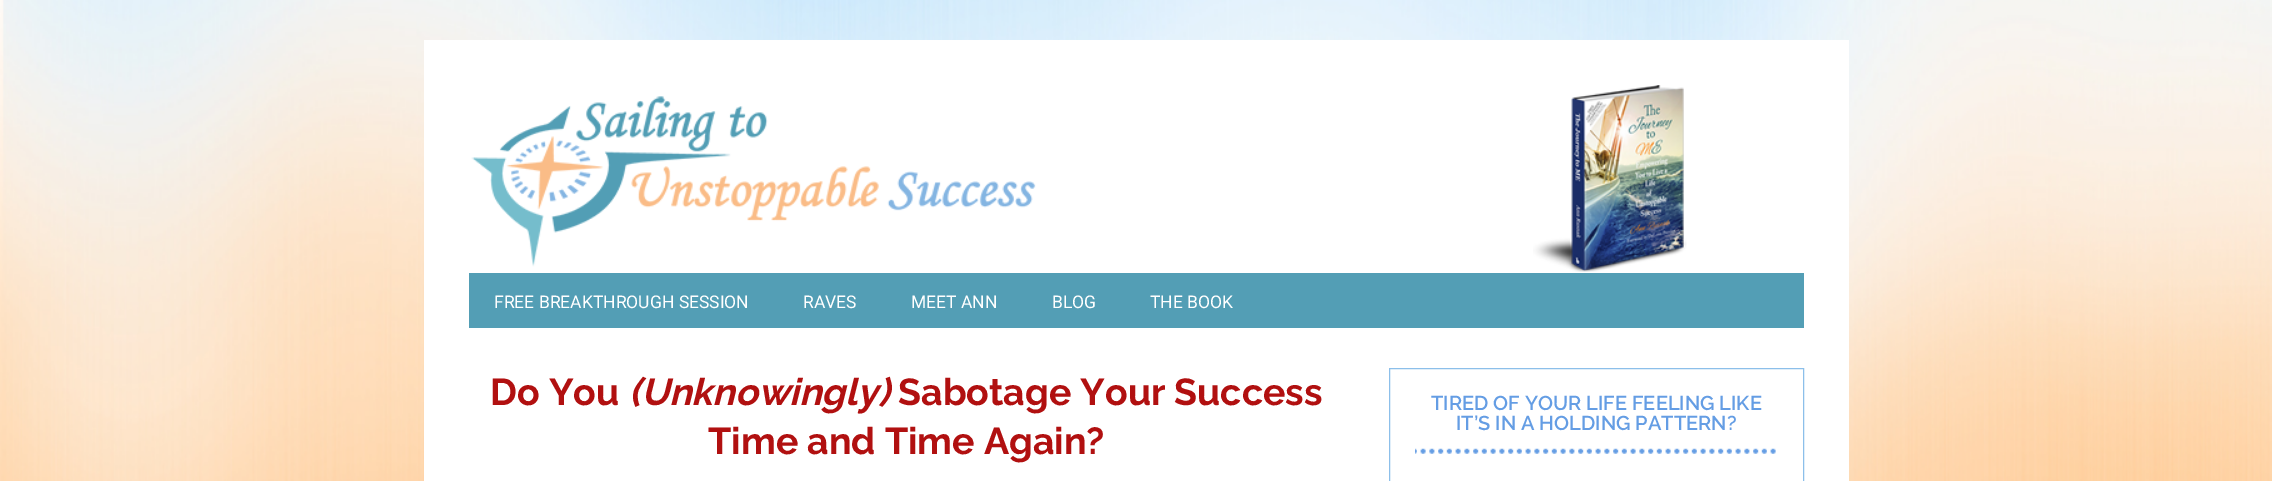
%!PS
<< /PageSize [2272 481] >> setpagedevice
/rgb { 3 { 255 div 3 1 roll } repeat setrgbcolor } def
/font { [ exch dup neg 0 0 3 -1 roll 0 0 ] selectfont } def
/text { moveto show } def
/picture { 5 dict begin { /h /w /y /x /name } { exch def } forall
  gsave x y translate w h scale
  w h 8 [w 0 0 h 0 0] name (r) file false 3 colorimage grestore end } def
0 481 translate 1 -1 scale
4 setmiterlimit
255 255 255 rgb
0 0 2272 481 rectfill
(img_01.rgb) 0 0 2272 481 picture
424 40 1425 441 rectfill
(img_02.rgb) 1533 85 154 187 picture
(img_03.rgb) 471 96 565 171 picture
83 158 181 rgb
469 273 1335 55 rectfill
140 191 234 rgb
1389.5 368.5 414 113 rectstroke
(img_04.rgb) 1415 448 361 6 picture
/Roboto-Regular 17.5 font
255 255 255 rgb
(FREE BREAKTHROUGH SESSION) 494 308 text
(RAVES) 803 308 text
(MEET ANN) 911 308 text
(BLOG) 1052 308 text
(THE BOOK) 1150 308 text
/Raleway-Bold 37.5 font
177 16 16 rgb
(Do You) 490 405 text
/Raleway-BoldItalic 37.5 font
(\(Unknowingly\)) 629 405 text
/Raleway-Bold 37.5 font
(Sabotage Your Success) 898 405 text
(Time and Time Again?) 708 454 text
/Raleway-SemiBold 20 font
100 157 228 rgb
(TIRED OF YOUR LIFE FEELING LIKE) 1431 410 text
(IT’S IN A HOLDING PATTERN?) 1456 430 text
showpage
